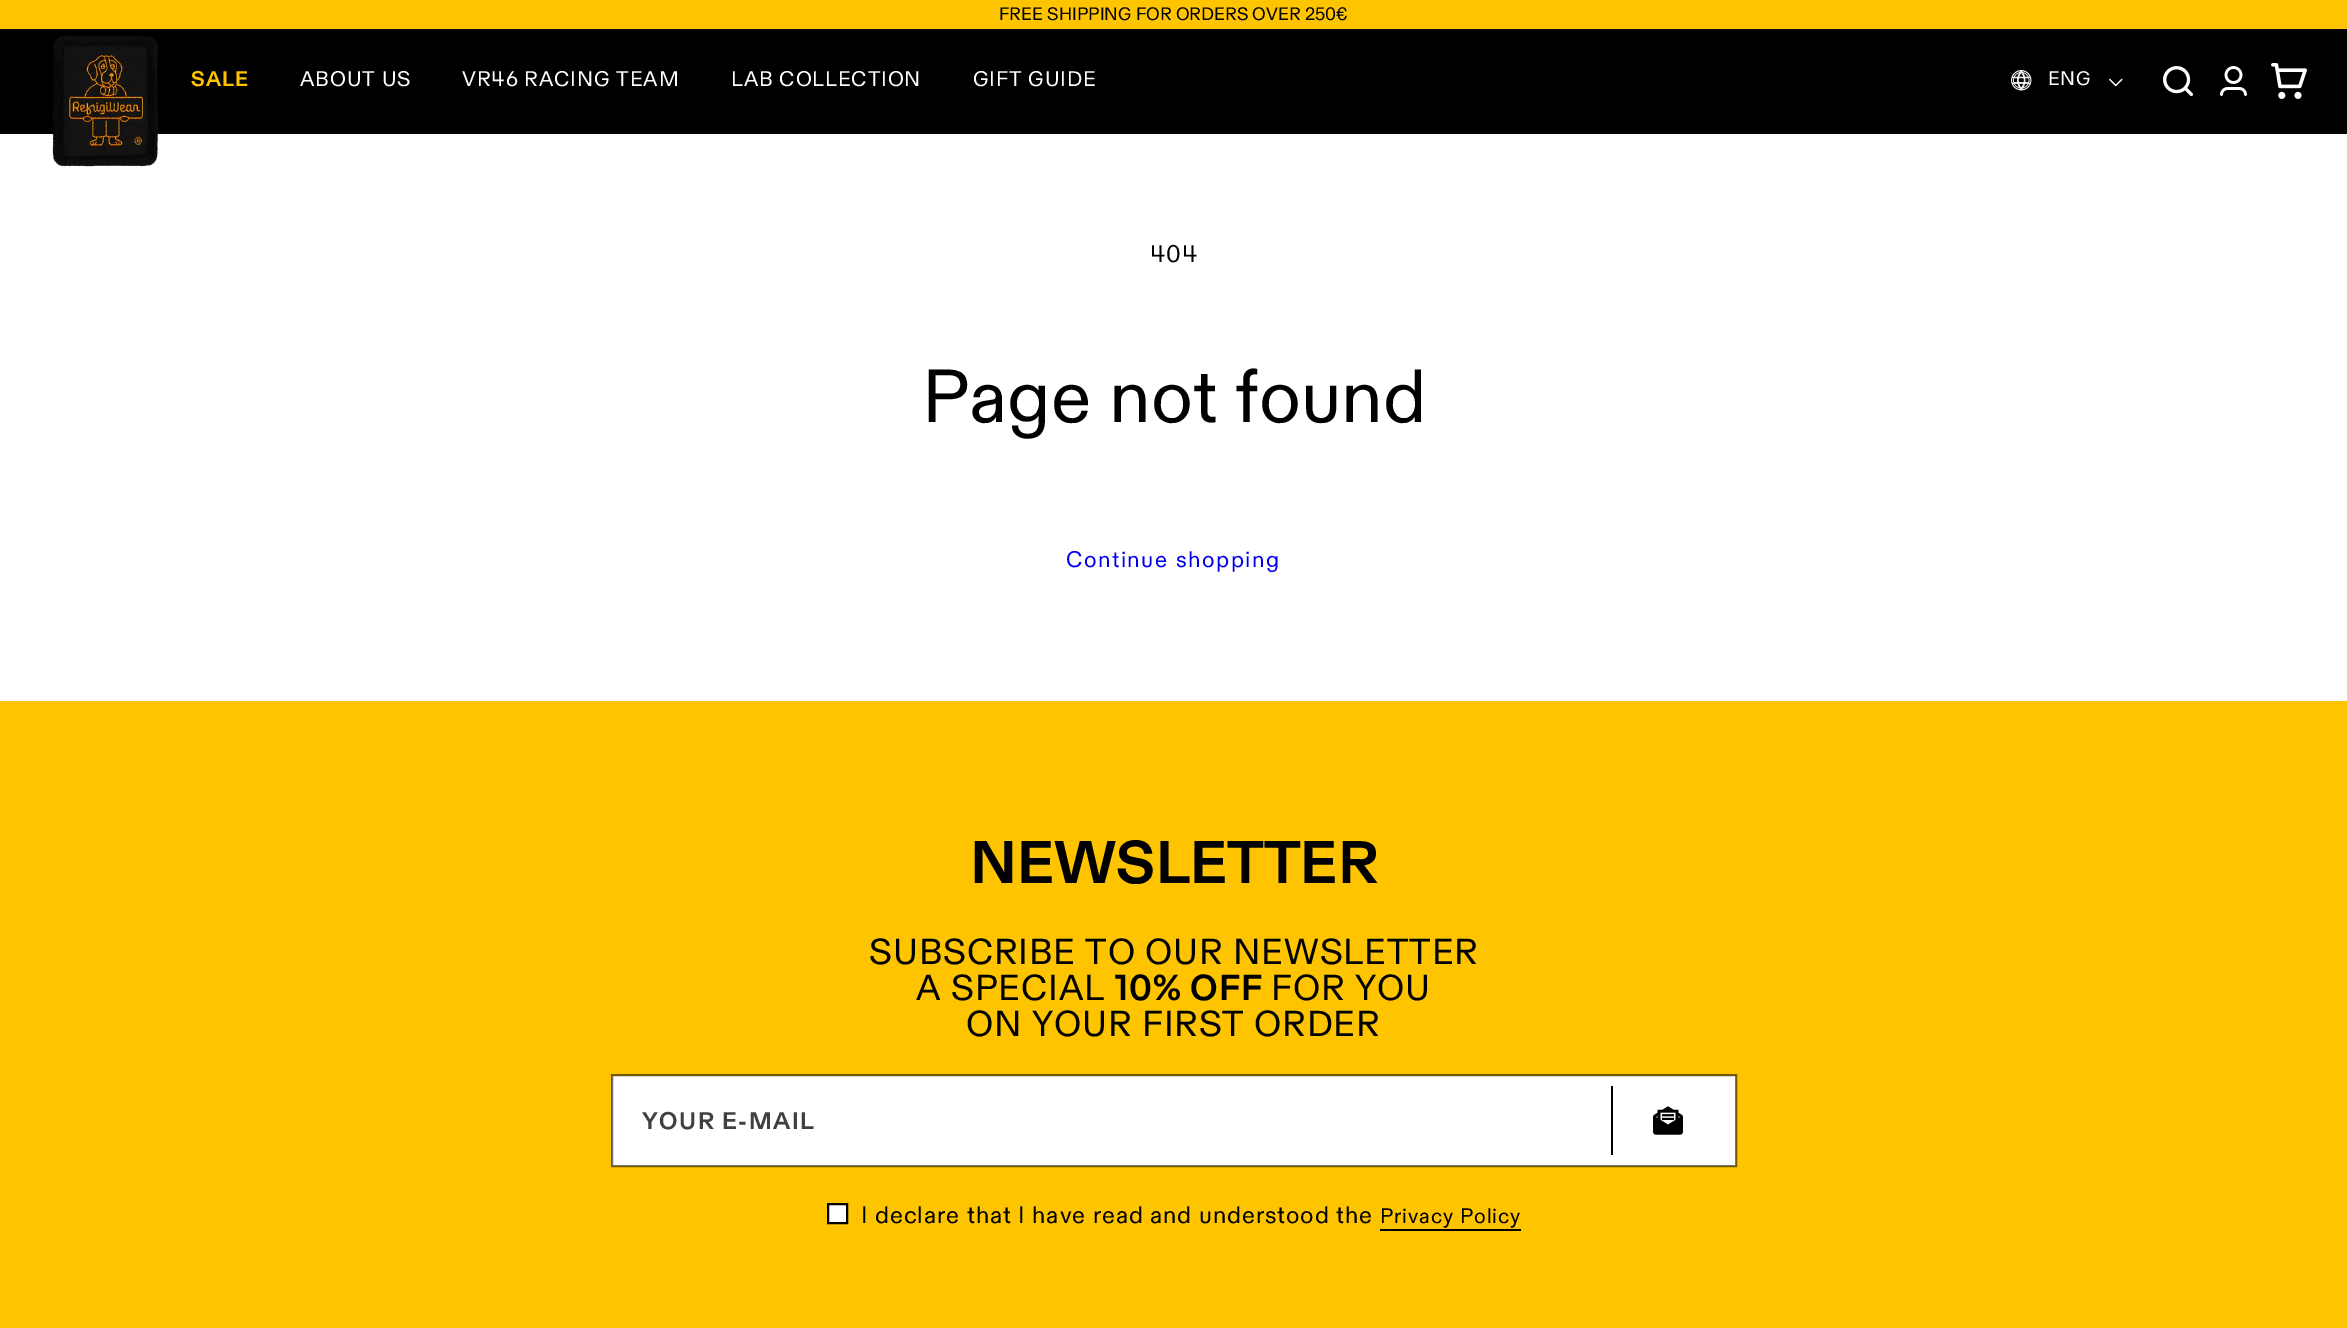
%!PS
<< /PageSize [2347 1328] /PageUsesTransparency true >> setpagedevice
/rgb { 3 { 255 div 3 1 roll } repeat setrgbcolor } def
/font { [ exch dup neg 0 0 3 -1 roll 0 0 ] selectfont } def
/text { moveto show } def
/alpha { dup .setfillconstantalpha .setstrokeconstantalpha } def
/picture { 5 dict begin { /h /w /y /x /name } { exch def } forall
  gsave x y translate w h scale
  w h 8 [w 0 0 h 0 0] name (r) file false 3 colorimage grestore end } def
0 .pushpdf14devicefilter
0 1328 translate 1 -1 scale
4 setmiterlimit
255 255 255 rgb
0 0 2347 1328 rectfill
255 196 0 rgb
0 0 2347 29 rectfill
0 0 0 rgb
0 29 2347 105 rectfill
(img_01.rgb) 52 35 106 132 picture
(img_02.rgb) 2011 70 21 21 picture
(img_03.rgb) 2109 78 14 9 picture
(img_04.rgb) 2163 66 30 30 picture
(img_05.rgb) 2220 66 27 30 picture
(img_06.rgb) 2271 63 36 36 picture
255 196 0 rgb
0 701 2347 627 rectfill
255 255 255 rgb
612 1076 1124 90 rectfill
0.55 alpha
0 0 0 rgb
2 setlinewidth
612 1075 1124 91 rectstroke
1 alpha
1611 1086 2 69 rectfill
(img_07.rgb) 1653 1106 30 29 picture
255 255 255 rgb
828 1204 moveto 19 0 rlineto 0 19 rlineto -19 0 rlineto closepath gsave fill grestore
0 0 0 rgb
stroke
1380 1229 141 2 rectfill
/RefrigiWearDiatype-Regular 18 font
(FREE SHIPPING FOR ORDERS OVER 250€) 999 20 text
/RefrigiWearDiatype-Bold 21.1 font
255 196 0 rgb
191 86 moveto 0.9 0 (SALE) ashow
/RefrigiWearDiatype-Regular 21.1 font
255 255 255 rgb
300 86 moveto 0.9 0 (ABOUT US) ashow
462 86 moveto 0.9 0 (VR46 RACING TEAM) ashow
731 86 moveto 0.9 0 (LAB COLLECTION) ashow
973 86 moveto 0.9 0 (GIFT GUIDE) ashow
/RefrigiWearDiatype-Regular 19.5 font
2048 85 moveto 0.5 0 (ENG) ashow
/RefrigiWearDiatype-Regular 24 font
0 0 0 rgb
1150 262 moveto 0.9 0 (404) ashow
/RefrigiWearDiatype-Regular 75 font
(Page not found) 922 422 text
/RefrigiWearDiatype-Regular 22.5 font
0 0 238 rgb
1066 567 moveto 1.5 0 (Continue shopping) ashow
/RefrigiWearDiatype-Bold 60 font
0 0 0 rgb
(NEWSLETTER) 970 883 text
/RefrigiWearDiatype-Regular 36 font
869 964 moveto 0.9 0 (SUBSCRIBE TO OUR NEWSLETTER) ashow
916 1000 moveto 0.9 0 (A SPECIAL) ashow
/RefrigiWearDiatype-Bold 36 font
1115 1000 moveto 0.9 0 (10% OFF) ashow
/RefrigiWearDiatype-Regular 36 font
1271 1000 moveto 0.9 0 (FOR YOU) ashow
966 1036 moveto 0.9 0 (ON YOUR FIRST ORDER) ashow
/RefrigiWearDiatype-Bold 24 font
64 64 64 rgb
642 1129 moveto 1.5 0 (YOUR E-MAIL) ashow
/RefrigiWearDiatype-Regular 24 font
0 0 0 rgb
861 1223 moveto 0.9 0 (I declare that I have read and understood the) ashow
/RefrigiWearDiatype-Regular 21 font
1380 1223 moveto 0.9 0 (Privacy Policy) ashow
.poppdf14devicefilter showpage
